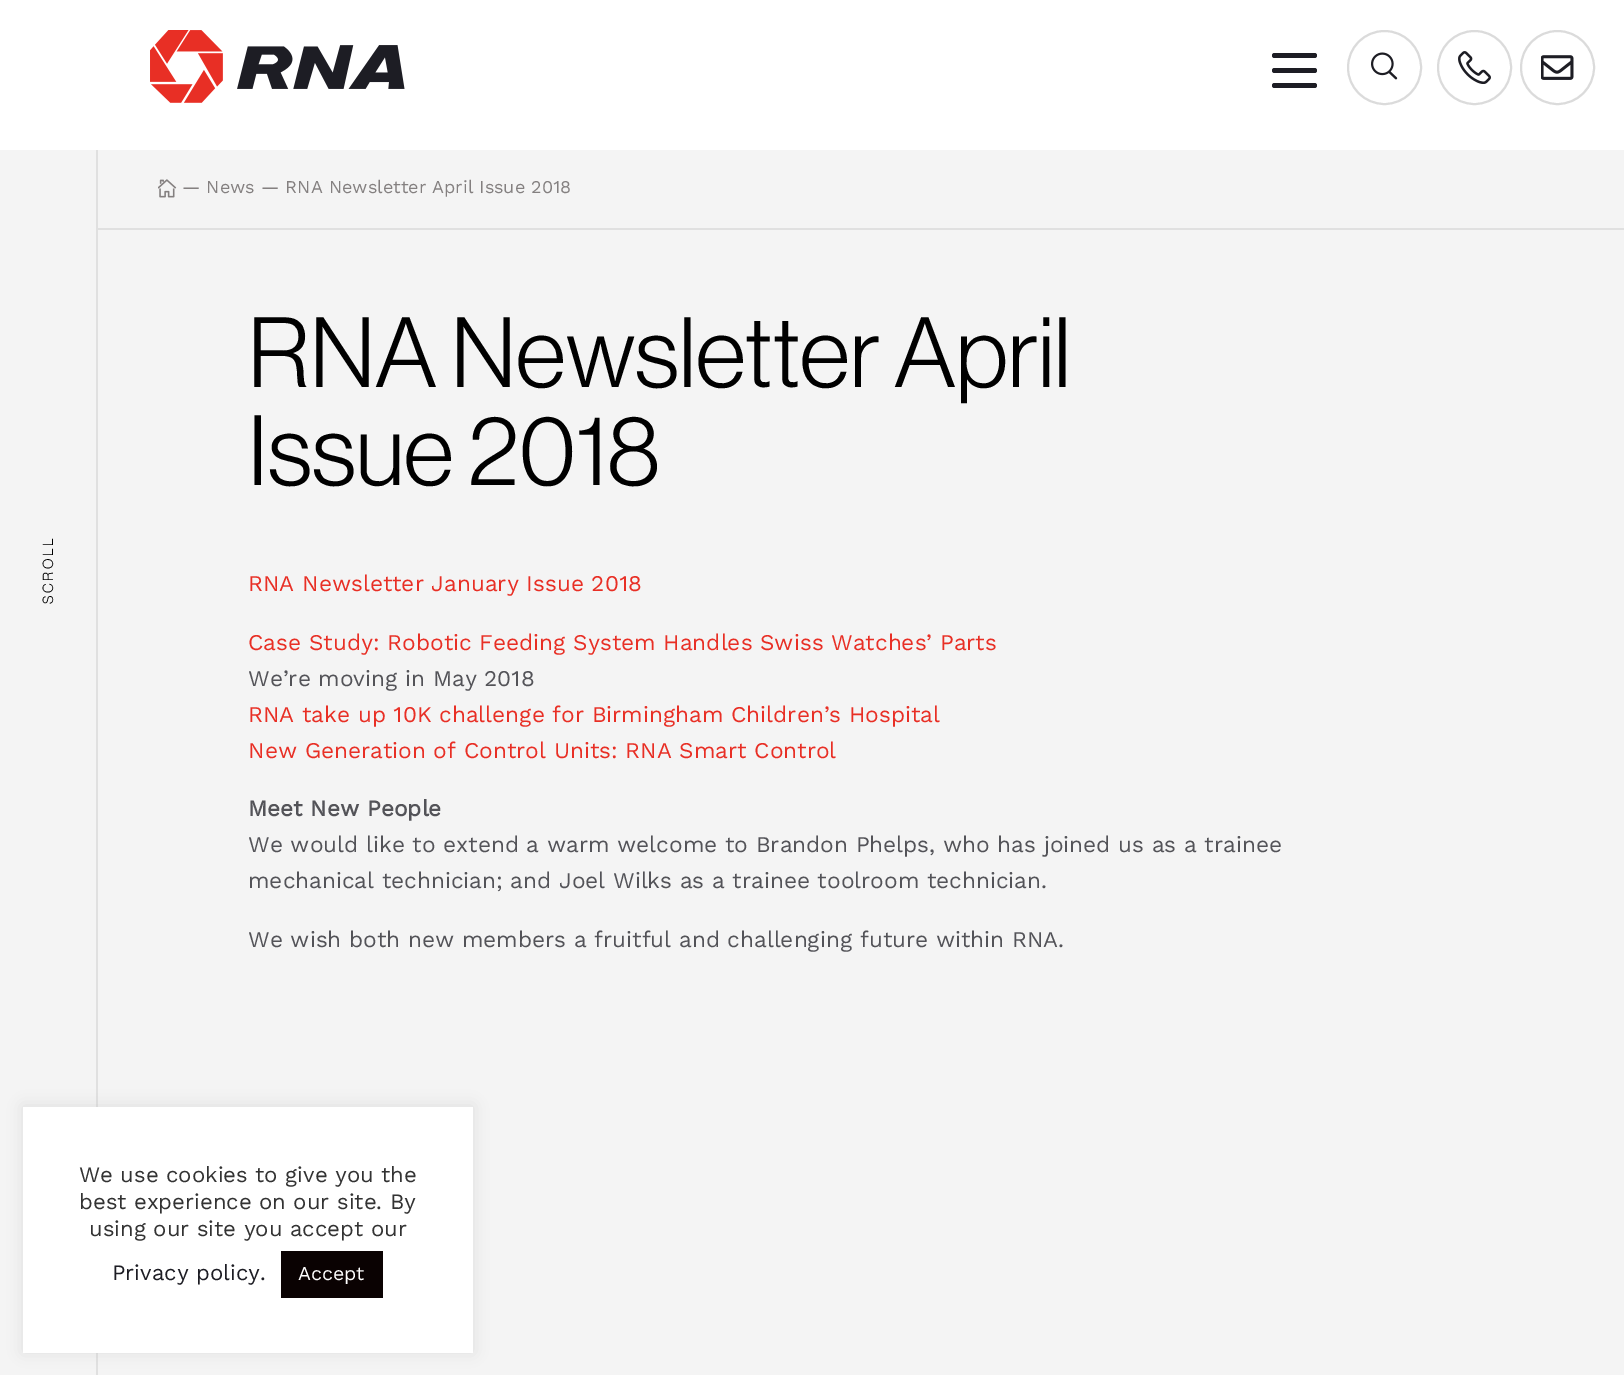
%!PS
<< /PageSize [1624 1375] /PageUsesTransparency true >> setpagedevice
/rgb { 3 { 255 div 3 1 roll } repeat setrgbcolor } def
/font { [ exch dup neg 0 0 3 -1 roll 0 0 ] selectfont } def
/text { moveto show } def
/alpha { dup .setfillconstantalpha .setstrokeconstantalpha } def
/circle { newpath 0 360 arc closepath } def
/roundrect { 5 dict begin { /r /h /w /y /x } { exch def } forall
  x r add y moveto x w add y 2 copy h add r arct x w add y h add x 1 index r arct
  x y h add x y r arct x y 2 copy exch w add exch r arct closepath end } def
/shadow { 12 dict begin { /a /b /q /h /w /y /x } { exch def } forall gsave /was 0 def
  9 -2 -9 { dup b mul 4 div /e exch def 1 sub .425 mul 2.718 exch exp 1 add a .99 .min exch div /now exch def
    1 1 now sub 1 was sub div sub alpha /was now def
    w h .min e 2 mul add 0 gt { x e sub y e sub w e 2 mul add h e 2 mul add
      q e add b .6 mul add w h .min 2 div e add .min 0 .max roundrect fill } if } for grestore end } def
/picture { 5 dict begin { /h /w /y /x /name } { exch def } forall
  gsave x y translate w h scale
  w h 8 [w 0 0 h 0 0] name (r) file false 3 colorimage grestore end } def
0 .pushpdf14devicefilter
0 1375 translate 1 -1 scale
4 setmiterlimit
255 255 255 rgb
0 0 1624 1375 rectfill
29 29 36 rgb
1272 53 45 5 2.5 roundrect fill
1272 68 45 5 2.5 roundrect fill
1272 83 45 5 2.5 roundrect fill
(img_01.rgb) 150 30 255 73 picture
219 219 219 rgb
2 setlinewidth
1384.5 67.5 36.5 circle stroke
(img_02.rgb) 1371 52 27 28 picture
1474.5 67.5 36.5 circle stroke
(img_03.rgb) 1458 51 33 33 picture
1557.5 67.5 36.5 circle stroke
(img_04.rgb) 1541 55 33 25 picture
244 244 244 rgb
98 150 1526 78 rectfill
224 224 224 rgb
98 228 1526 2 rectfill
244 244 244 rgb
0 150 96 80 rectfill
0 230 1624 1145 rectfill
224 224 224 rgb
96 150 2 1225 rectfill
(img_05.rgb) 158 179 19 19 picture
172 171 171 rgb
23 1106 450 246 0 7.5 0.3 shadow
255 255 255 rgb
23 1107 450 246 rectfill
10 2 2 rgb
281 1251 102 47 rectfill
/WorkSans-Regular 18 font
132 128 128 rgb
(— News — RNA Newsletter April Issue 2018) 182 193 text
/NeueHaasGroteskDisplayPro-Regular 97.5 font
0 0 0 rgb
(RNA Newsletter April) 248 387 text
(Issue 2018) 248 485 text
/NeueHaasGroteskDisplayPro-Regular 14.25 font
gsave 53 604 translate -90 rotate 0 0 moveto 2.5 0 (SCROLL) ashow grestore
/WorkSans-Regular 22.5 font
232 47 37 rgb
(RNA Newsletter January Issue 2018) 248 591 text
(Case Study: Robotic Feeding System Handles Swiss Watches’ Parts) 248 650 text
83 83 88 rgb
(We’re moving in May 2018) 248 686 text
232 47 37 rgb
(RNA take up 10K challenge for Birmingham Children’s Hospital) 248 722 text
(New Generation of Control Units: RNA Smart Control) 248 758 text
/WorkSans-Bold 22.5 font
83 83 88 rgb
(Meet New People) 248 816 text
/WorkSans-Regular 22.5 font
(We would like to extend a warm welcome to Brandon Phelps, who has joined us as a trainee) 248 852 text
(mechanical technician; and Joel Wilks as a trainee toolroom technician.) 248 888 text
(We wish both new members a fruitful and challenging future within RNA.) 248 947 text
/WorkSans-Regular 22 font
51 51 51 rgb
(We use cookies to give you the) 79 1182 text
(best experience on our site. By) 79 1209 text
(using our site you accept our) 89 1236 text
29 29 36 rgb
(Privacy policy.) 112 1280 text
/WorkSans-Regular 19.5 font
255 255 255 rgb
(Accept) 298 1280 text
.poppdf14devicefilter showpage
